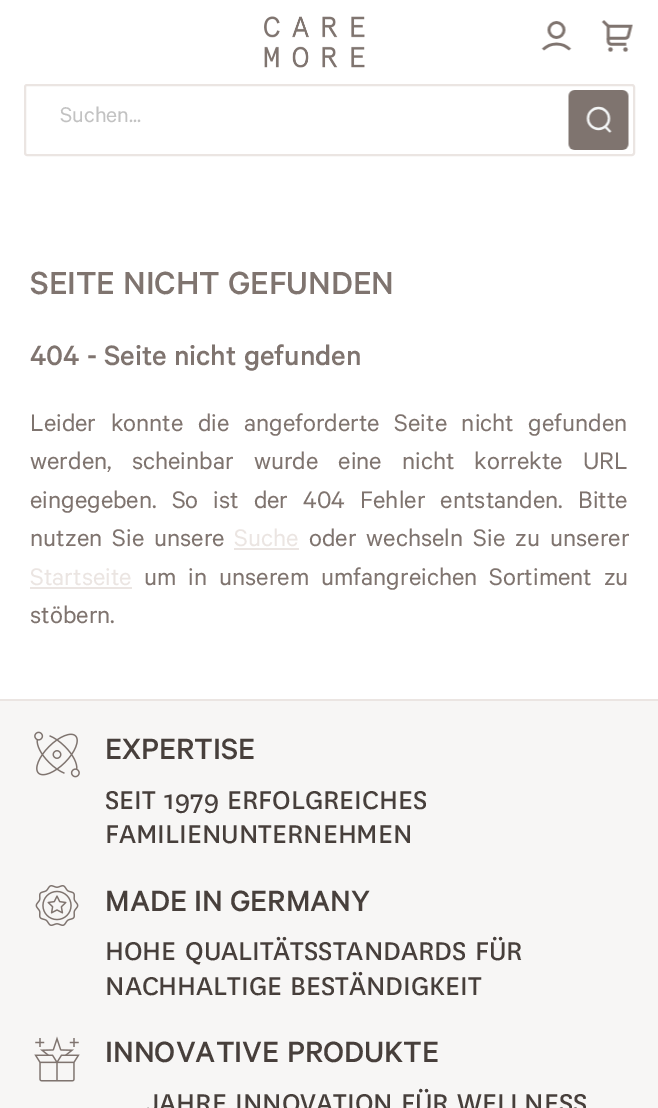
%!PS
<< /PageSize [658 1108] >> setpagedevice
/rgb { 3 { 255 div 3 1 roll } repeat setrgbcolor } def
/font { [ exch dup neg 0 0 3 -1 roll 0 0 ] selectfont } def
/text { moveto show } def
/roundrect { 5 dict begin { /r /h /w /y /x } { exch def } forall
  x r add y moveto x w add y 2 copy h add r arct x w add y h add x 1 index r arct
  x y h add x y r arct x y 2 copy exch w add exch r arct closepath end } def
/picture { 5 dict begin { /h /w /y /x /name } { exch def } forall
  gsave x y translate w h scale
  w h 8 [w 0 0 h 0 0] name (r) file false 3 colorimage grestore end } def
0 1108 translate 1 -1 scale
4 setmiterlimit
255 255 255 rgb
0 0 658 1108 rectfill
(img_01.rgb) 264 16 101 52 picture
(img_02.rgb) 541 21 31 30 picture
(img_03.rgb) 601 20 32 32 picture
235 229 226 rgb
2 setlinewidth
25 85 609 70 2 roundrect stroke
(img_04.rgb) 568 90 61 60 picture
234 548 65 2 rectfill
30 587 102 2 rectfill
247 246 245 rgb
0 701 658 407 rectfill
235 229 226 rgb
0 699 658 2 rectfill
(img_05.rgb) 34 731 46 47 picture
(img_06.rgb) 35 885 44 41 picture
(img_07.rgb) 34 1036 46 46 picture
/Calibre-Regular 24 font
194 194 194 rgb
(Suchen...) 60 122 text
/Calibre-Medium 36 font
127 116 111 rgb
(SEITE NICHT GEFUNDEN) 30 294 text
/Calibre-Medium 31.5 font
(404 - Seite nicht gefunden) 30 365 text
/Calibre-Regular 27 font
30 431 moveto 8.5 0 32 (Leider konnte die angeforderte Seite nicht gefunden) widthshow
30 469 moveto 14 0 32 (werden, scheinbar wurde eine nicht korrekte URL) widthshow
30 508 moveto 9 0 32 (eingegeben. So ist der 404 Fehler entstanden. Bitte) widthshow
30 546 moveto 4 0 32 (nutzen Sie unsere) widthshow
235 229 226 rgb
(Suche) 234 546 text
127 116 111 rgb
309 546 moveto 4 0 32 (oder wechseln Sie zu unserer) widthshow
235 229 226 rgb
(Startseite) 30 585 text
127 116 111 rgb
144 585 moveto 5.75 0 32 (um in unserem umfangreichen Sortiment zu) widthshow
(stöbern.) 30 623 text
/Calibre-Medium 33 font
71 63 59 rgb
(EXPERTISE) 105 759 text
/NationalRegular-Regular 30 font
(SEIT) 105 809 text
(1979) 164 809 text
(ERFOLGREICHES) 227 809 text
(FAMILIENUNTERNEHMEN) 105 843 text
/Calibre-Medium 33 font
(MADE IN GERMANY) 105 911 text
/NationalRegular-Regular 30 font
(HOHE) 105 960 text
(QUALITÄTSSTANDARDS) 185 960 text
(FÜR) 475 960 text
(NACHHALTIGE) 105 995 text
(BESTÄNDIGKEIT) 290 995 text
/Calibre-Medium 33 font
(INNOVATIVE PRODUKTE) 105 1062 text
/NationalRegular-Regular 30 font
(JAHRE) 146 1112 text
(INNOVATION) 235 1112 text
(FÜR) 401 1112 text
(WELLNESS) 457 1112 text
showpage
